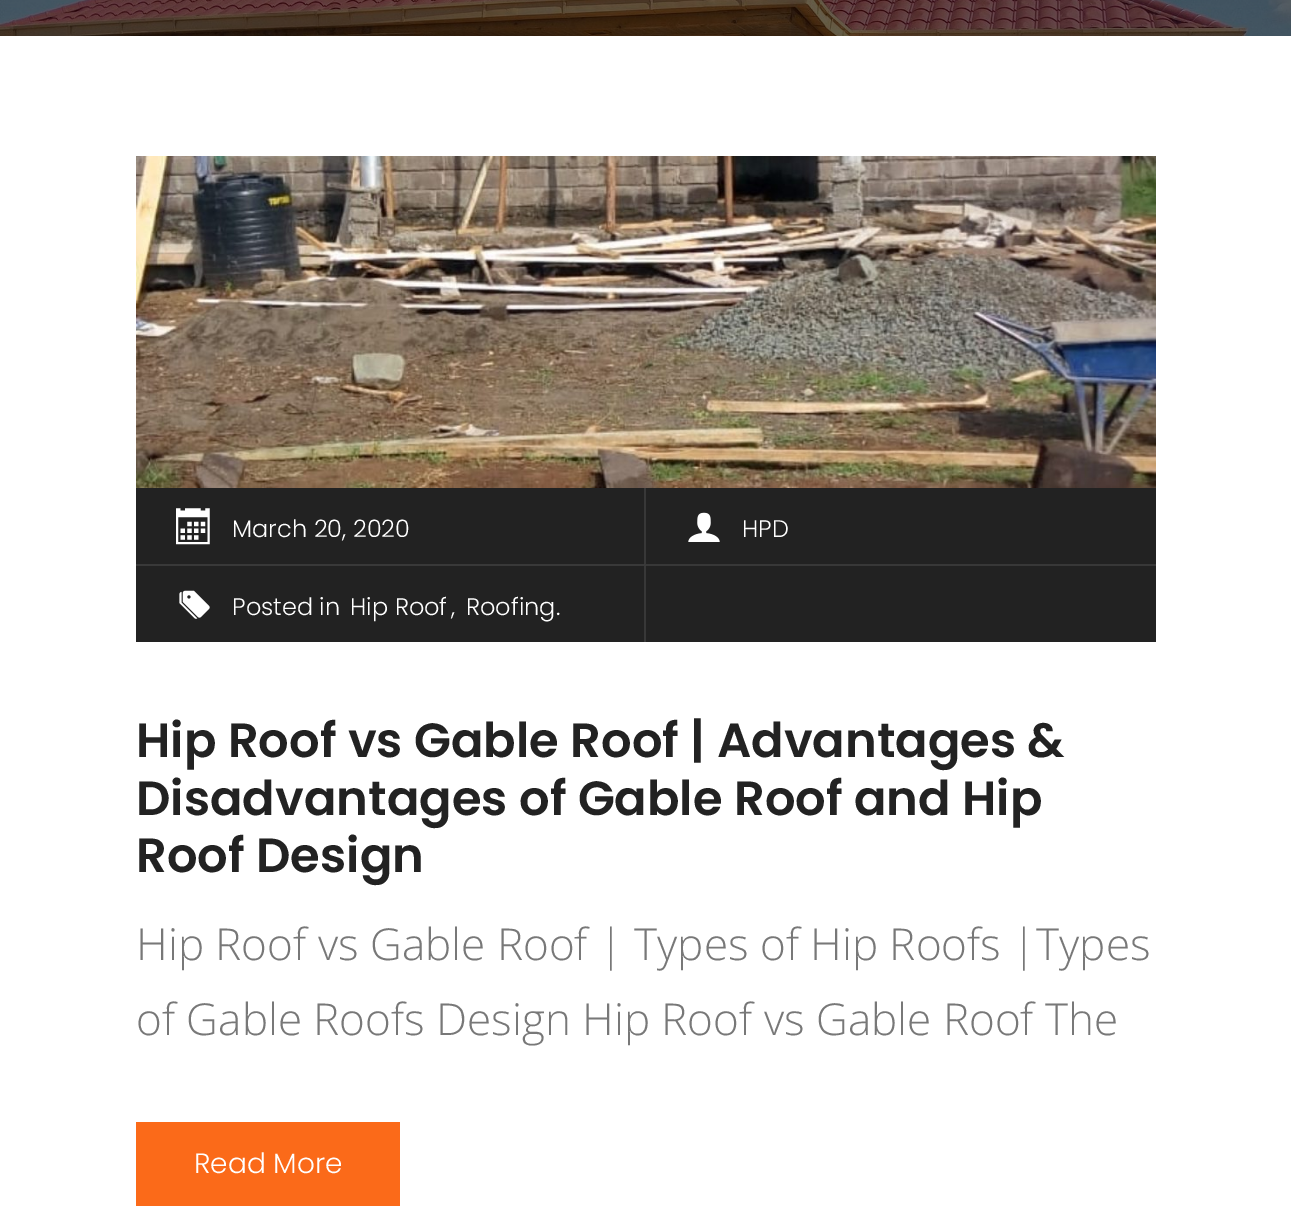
%!PS
<< /PageSize [1291 1212] /PageUsesTransparency true >> setpagedevice
/rgb { 3 { 255 div 3 1 roll } repeat setrgbcolor } def
/font { [ exch dup neg 0 0 3 -1 roll 0 0 ] selectfont } def
/text { moveto show } def
/alpha { dup .setfillconstantalpha .setstrokeconstantalpha } def
/picture { 5 dict begin { /h /w /y /x /name } { exch def } forall
  gsave x y translate w h scale
  w h 8 [w 0 0 h 0 0] name (r) file false 3 colorimage grestore end } def
0 .pushpdf14devicefilter
0 1212 translate 1 -1 scale
4 setmiterlimit
255 255 255 rgb
0 0 1291 1212 rectfill
(img_01.rgb) 0 0 1291 36 picture
(img_02.rgb) 136 156 1020 332 picture
34 34 34 rgb
136 488 1020 154 rectfill
56 56 56 rgb
646 488 moveto 0 78 rlineto -2 -2 rlineto 0 -76 rlineto closepath fill
0.1 alpha
255 255 255 rgb
646 566 moveto -510 0 rlineto 0 -2 rlineto 508 0 rlineto closepath fill
1 alpha
(img_03.rgb) 176 508 34 37 picture
56 56 56 rgb
646 564 510 2 rectfill
(img_04.rgb) 688 512 32 30 picture
644 566 2 76 rectfill
(img_05.rgb) 179 590 31 29 picture
251 106 25 rgb
136 1122 264 84 rectfill
/Poppins-Light 24 font
255 255 255 rgb
(March 20, 2020) 232 537 text
(HPD) 742 537 text
(Posted in) 232 615 text
(Hip Roof) 350 615 text
(,) 451 615 text
(Roofing.) 466 615 text
/Poppins-SemiBold 48 font
34 34 34 rgb
(Hip Roof vs Gable Roof | Advantages &) 136 757 text
(Disadvantages of Gable Roof and Hip) 136 815 text
(Roof Design) 136 872 text
/OpenSans-Light 44 font
120 120 120 rgb
(Hip Roof vs Gable Roof | Types of Hip Roofs |Types) 136 960 text
(of Gable Roofs Design Hip Roof vs Gable Roof The) 136 1035 text
/Poppins-Light 28 font
255 255 255 rgb
(Read More) 194 1173 text
.poppdf14devicefilter showpage
